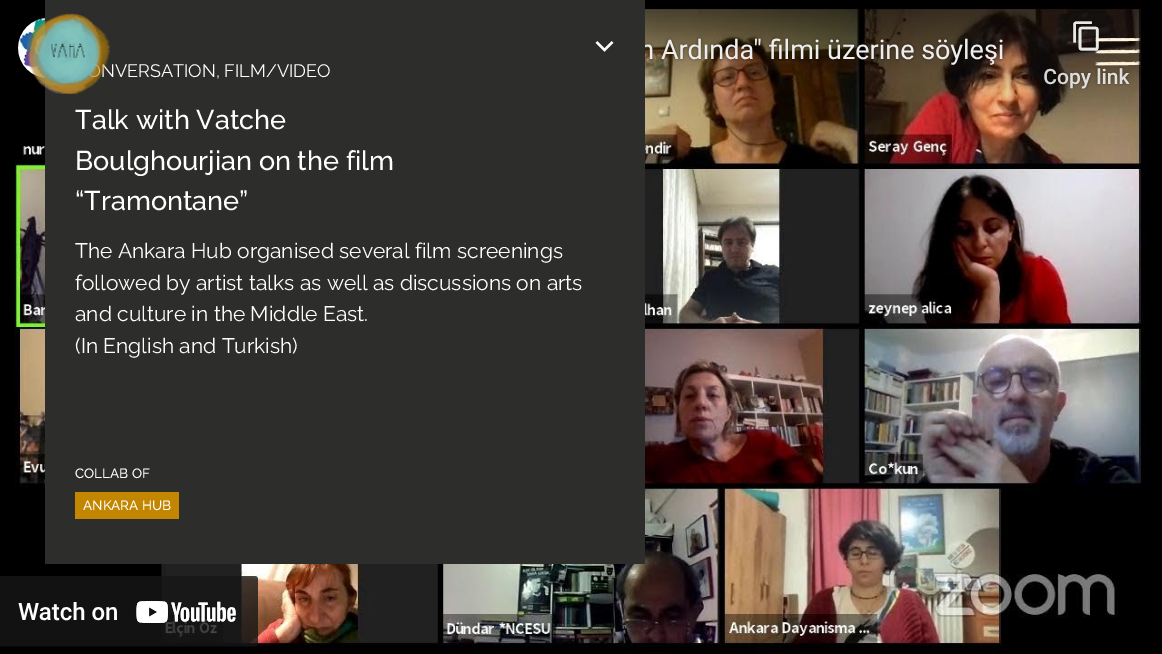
%!PS
<< /PageSize [1162 654] >> setpagedevice
/rgb { 3 { 255 div 3 1 roll } repeat setrgbcolor } def
/font { [ exch dup neg 0 0 3 -1 roll 0 0 ] selectfont } def
/text { moveto show } def
/picture { 5 dict begin { /h /w /y /x /name } { exch def } forall
  gsave x y translate w h scale
  w h 8 [w 0 0 h 0 0] name (r) file false 3 colorimage grestore end } def
0 654 translate 1 -1 scale
4 setmiterlimit
255 255 255 rgb
0 0 1162 654 rectfill
(img_03.rgb) 0 0 1162 654 picture
(img_02.rgb) 1095 38 46 28 picture
45 46 44 rgb
45 0 600 564 rectfill
255 255 255 rgb
2.3 setlinewidth
612.5 42 moveto -8 8 rlineto -8 -8 rlineto stroke
194 134 1 rgb
75 492 104 27 rectfill
/Raleway-Regular 18 font
255 255 255 rgb
(NVERSATION, FILM/VIDEO) 101 77 text
(img_01.rgb) 26 13 84 81 picture
/Raleway-Medium 27 font
(Talk with Vatche) 75 129 text
(Boulghourjian on the film) 75 170 text
(“Tramontane”) 75 210 text
/Raleway-Regular 21 font
(The Ankara Hub organised several film screenings) 75 258 text
(followed by artist talks as well as discussions on arts) 75 290 text
(and culture in the Middle East.) 75 321 text
(\(In English and Turkish\)) 75 353 text
/Raleway-Medium 13.5 font
(COLLAB OF) 75 478 text
(ANKARA HUB) 83 510 text
showpage
